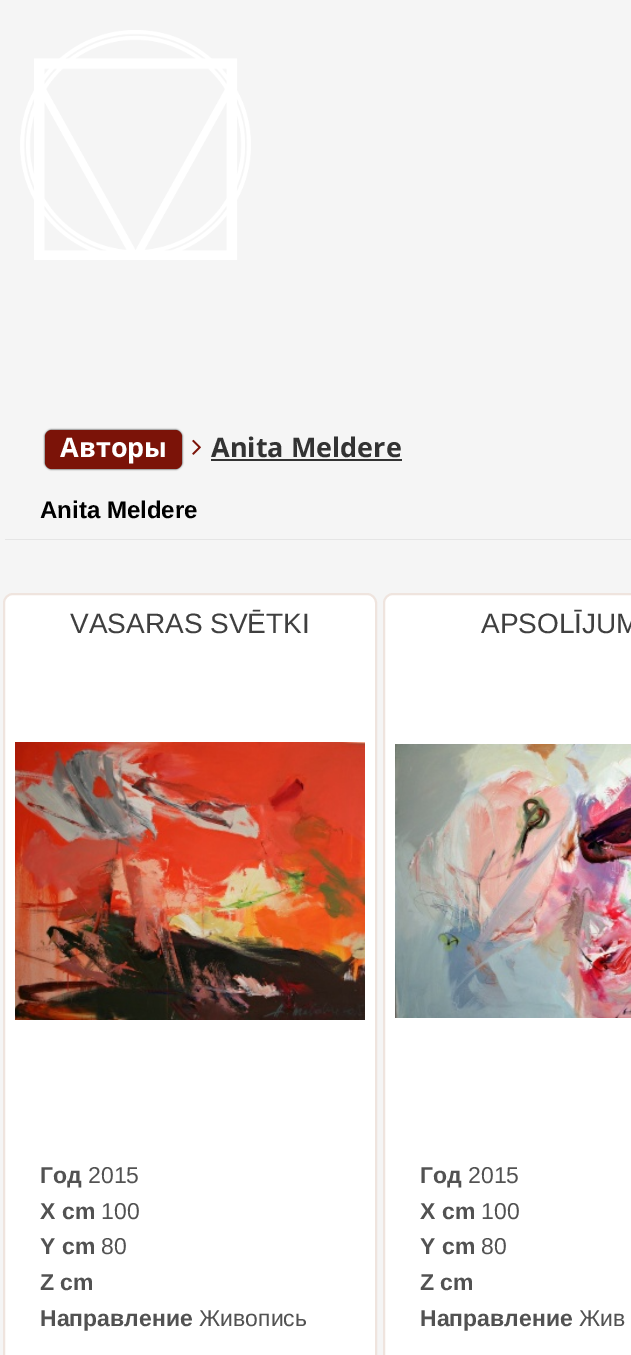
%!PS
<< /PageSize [631 1355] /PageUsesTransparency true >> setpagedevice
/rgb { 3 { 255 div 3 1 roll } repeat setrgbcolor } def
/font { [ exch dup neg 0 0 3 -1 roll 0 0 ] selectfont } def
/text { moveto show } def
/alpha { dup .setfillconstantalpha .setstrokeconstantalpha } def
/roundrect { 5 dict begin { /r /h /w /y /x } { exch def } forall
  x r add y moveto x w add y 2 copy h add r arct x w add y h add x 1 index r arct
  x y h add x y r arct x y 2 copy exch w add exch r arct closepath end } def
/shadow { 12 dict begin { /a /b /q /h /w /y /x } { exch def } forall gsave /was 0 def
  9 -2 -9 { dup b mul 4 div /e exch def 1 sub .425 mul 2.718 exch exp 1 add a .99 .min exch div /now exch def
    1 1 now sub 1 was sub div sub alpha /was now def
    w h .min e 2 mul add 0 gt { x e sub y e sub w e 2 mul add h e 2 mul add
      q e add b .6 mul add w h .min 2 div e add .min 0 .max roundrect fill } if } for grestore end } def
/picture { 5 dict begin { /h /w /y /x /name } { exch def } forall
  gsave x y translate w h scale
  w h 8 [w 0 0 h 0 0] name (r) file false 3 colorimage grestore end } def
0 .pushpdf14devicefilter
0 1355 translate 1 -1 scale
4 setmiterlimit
245 245 245 rgb
0 0 631 1355 rectfill
(img_01.rgb) 20 30 231 230 picture
0 0 0 rgb
45 430 137 39 7 1 1 shadow
123 19 8 rgb
45 430 137 39 7 roundrect fill
(img_02.rgb) 192 439 9 16 picture
51 51 51 rgb
211 459 191 2 rectfill
229 229 229 rgb
5 539 626 1 rectfill
255 255 255 rgb
4 594 372 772 9 roundrect gsave fill grestore
239 228 222 rgb
2 setlinewidth
stroke
(img_03.rgb) 15 742 350 278 picture
255 255 255 rgb
384 594 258 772 9 roundrect gsave fill grestore
239 228 222 rgb
stroke
(img_04.rgb) 395 744 236 274 picture
/OpenSans-Bold 27 font
255 255 255 rgb
(Авторы) 60 457 text
51 51 51 rgb
(Anita Meldere) 211 457 text
/LiberationSans-Bold 24 font
0 0 0 rgb
(Anita Meldere) 40 518 text
/LiberationSans-Regular 28 font
63 63 63 rgb
(VASARAS SVĒTKI) 70 633 text
/LiberationSans-Bold 23 font
82 82 82 rgb
(Год) 40 1183 text
/LiberationSans-Regular 23 font
(2015) 88 1183 text
/LiberationSans-Bold 23 font
(X cm) 40 1219 text
/LiberationSans-Regular 23 font
(100) 101 1219 text
/LiberationSans-Bold 23 font
(Y cm) 40 1254 text
/LiberationSans-Regular 23 font
(80) 101 1254 text
/LiberationSans-Bold 23 font
(Z cm) 40 1290 text
(Направление) 40 1326 text
/LiberationSans-Regular 23 font
(Живопись) 199 1326 text
/LiberationSans-Regular 28 font
63 63 63 rgb
(APSOLĪJUM) 481 633 text
/LiberationSans-Bold 23 font
82 82 82 rgb
(Год) 420 1183 text
/LiberationSans-Regular 23 font
(2015) 468 1183 text
/LiberationSans-Bold 23 font
(X cm) 420 1219 text
/LiberationSans-Regular 23 font
(100) 481 1219 text
/LiberationSans-Bold 23 font
(Y cm) 420 1254 text
/LiberationSans-Regular 23 font
(80) 481 1254 text
/LiberationSans-Bold 23 font
(Z cm) 420 1290 text
(Направление) 420 1326 text
/LiberationSans-Regular 23 font
(Жив) 579 1326 text
.poppdf14devicefilter showpage
